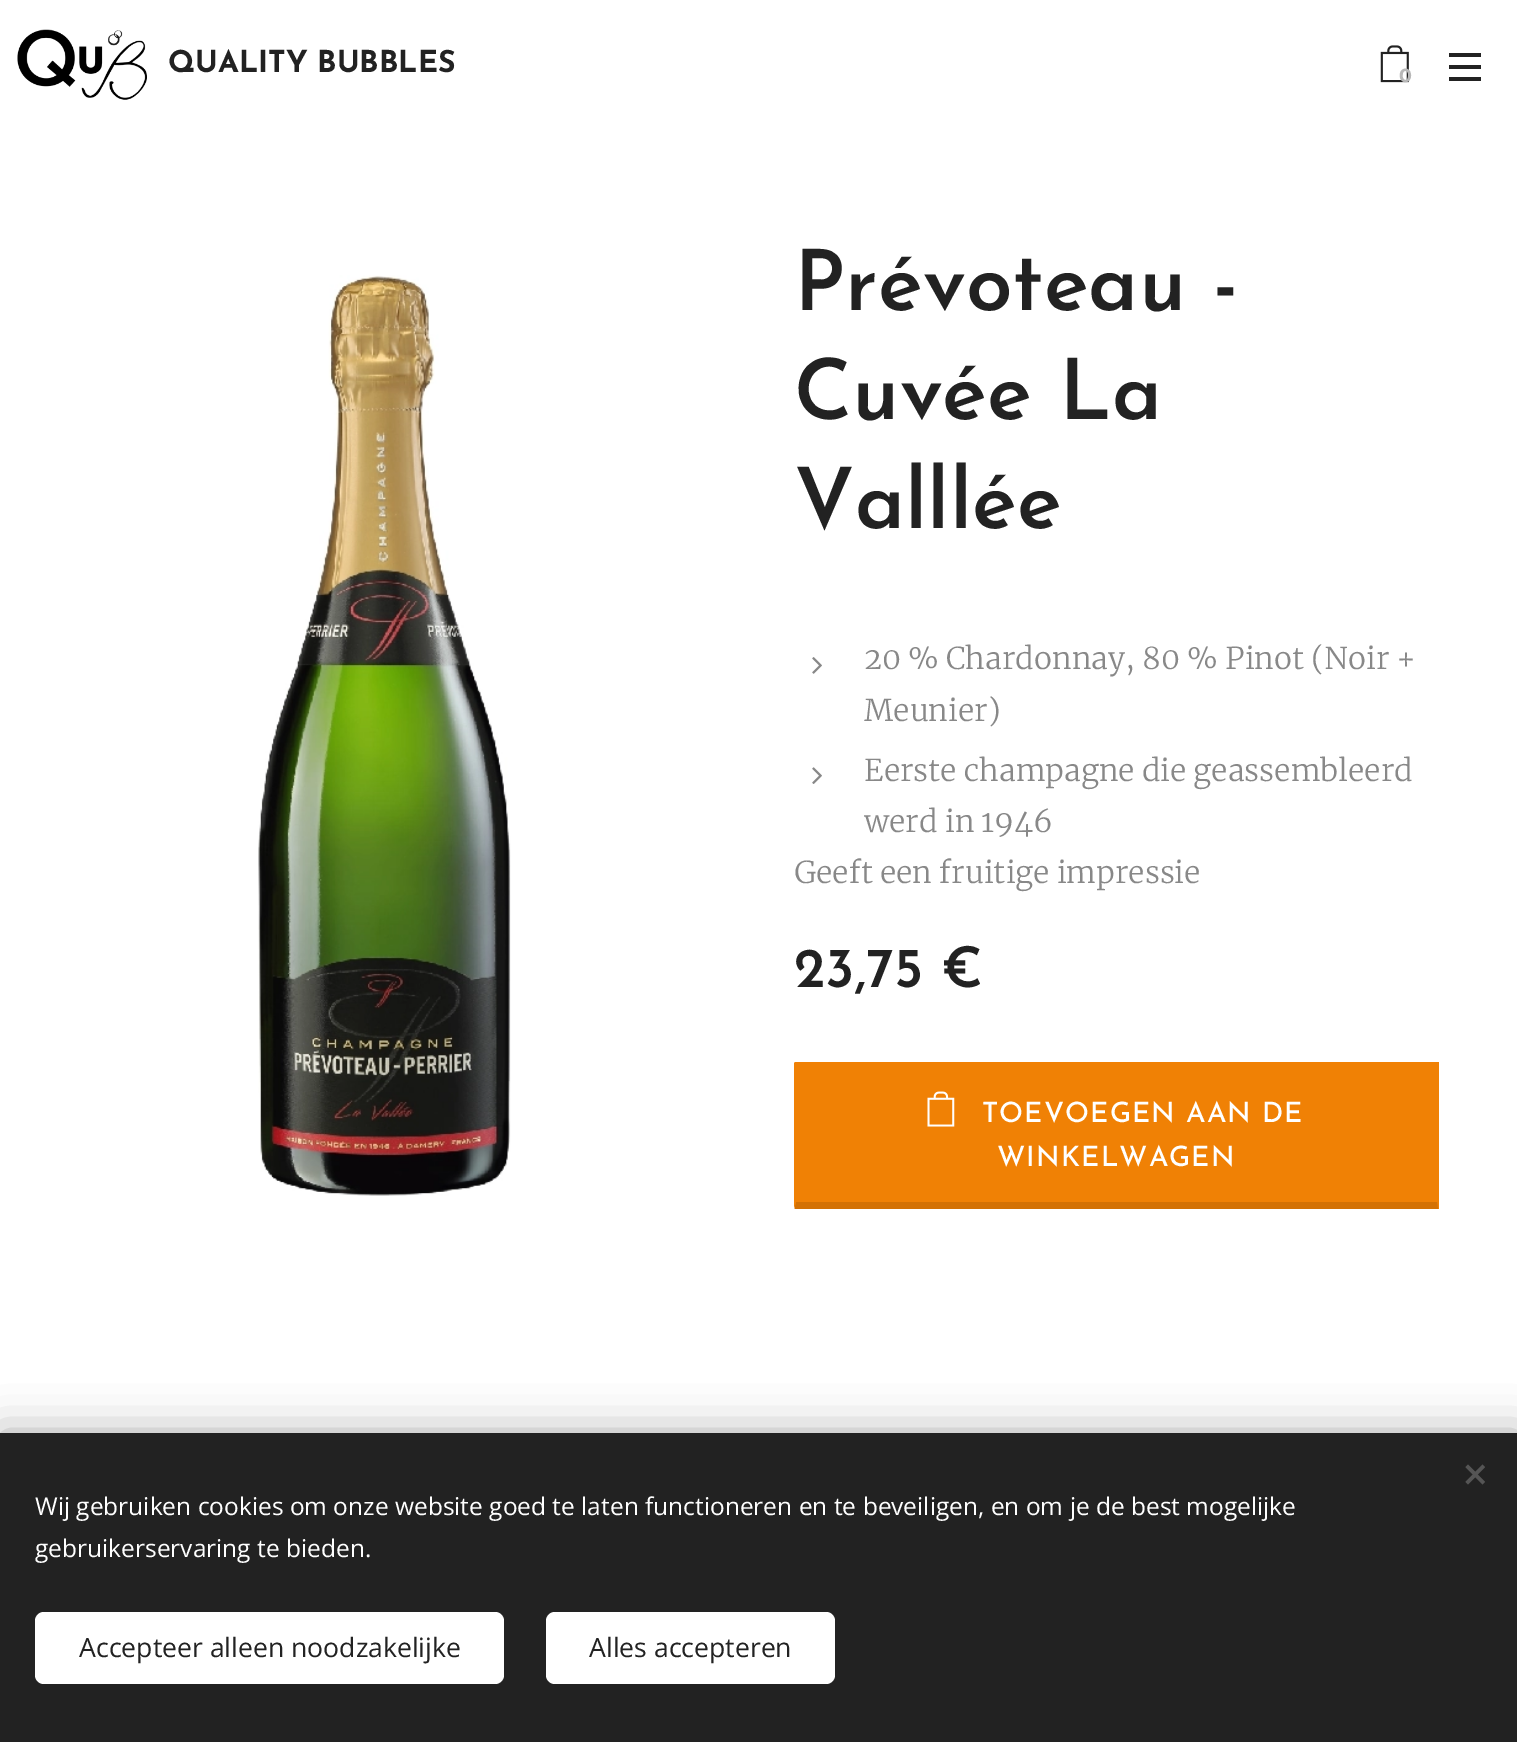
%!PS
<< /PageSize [1517 1742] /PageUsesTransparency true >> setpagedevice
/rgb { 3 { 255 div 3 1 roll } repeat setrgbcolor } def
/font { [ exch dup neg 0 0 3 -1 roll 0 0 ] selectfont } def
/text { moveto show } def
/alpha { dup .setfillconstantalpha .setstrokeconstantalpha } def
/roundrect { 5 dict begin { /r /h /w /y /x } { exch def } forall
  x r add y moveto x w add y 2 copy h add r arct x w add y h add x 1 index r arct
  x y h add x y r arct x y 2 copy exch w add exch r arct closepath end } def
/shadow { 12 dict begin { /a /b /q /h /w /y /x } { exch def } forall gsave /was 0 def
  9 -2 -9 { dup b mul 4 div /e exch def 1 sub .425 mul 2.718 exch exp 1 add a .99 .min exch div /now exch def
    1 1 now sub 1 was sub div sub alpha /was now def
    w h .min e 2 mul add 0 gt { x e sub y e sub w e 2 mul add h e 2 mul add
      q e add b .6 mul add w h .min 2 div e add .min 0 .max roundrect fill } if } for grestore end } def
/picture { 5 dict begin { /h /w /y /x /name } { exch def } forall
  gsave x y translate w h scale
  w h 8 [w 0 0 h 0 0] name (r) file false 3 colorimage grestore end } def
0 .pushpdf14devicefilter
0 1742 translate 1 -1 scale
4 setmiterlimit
255 255 255 rgb
0 0 1517 1742 rectfill
(img_01.rgb) 17 29 130 71 picture
(img_02.rgb) 1380 45 29 38 picture
34 34 34 rgb
1449 65 32 4 rectfill
1449 53 32 4 rectfill
1449 77 32 4 rectfill
(img_03.rgb) 258 275 253 921 picture
(img_04.rgb) 812 657 10 17 picture
(img_05.rgb) 812 767 10 17 picture
240 129 5 rgb
795 1062 644 147 rectfill
0.12 alpha
0 0 0 rgb
1438 1209 moveto -644 0 rlineto 2 -7 rlineto 641 0 rlineto closepath fill
1 alpha
240 129 5 rgb
794 1209 moveto 0 -147 rlineto 2 2 rlineto 0 138 rlineto closepath fill
(img_06.rgb) 927 1091 28 36 picture
0 0 0 rgb
0 1433 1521 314 0 22 0.33 shadow
34 34 34 rgb
0 1433 1517 309 rectfill
85 85 85 rgb
1465.5 1482 moveto 17 -17.5 rlineto 2.5 2.5 rlineto -17 17.5 rlineto closepath fill
1468 1464.5 moveto 17 17.5 rlineto -2.5 2.5 rlineto -17 -17.5 rlineto closepath fill
255 255 255 rgb
35 1612 469 72 9 roundrect fill
546 1612 289 72 9 roundrect fill
/JosefinSans-Bold 30.1 font
34 34 34 rgb
(QUALITY BUBBLES) 168 72 text
/Montserrat-Bold 19 font
184 184 184 rgb
(0) 1399 82 text
/JosefinSans-SemiBold 84 font
34 34 34 rgb
(Prévoteau -) 794 310 text
(Cuvée La) 794 419 text
(Valllée) 794 528 text
/Merriweather-Light 30.1 font
136 136 136 rgb
(20 % Chardonnay, 80 % Pinot \(Noir +) 864 669 text
(Meunier\)) 864 721 text
(Eerste champagne die geassembleerd) 864 781 text
(werd in 1946) 864 832 text
(Geeft een fruitige impressie) 794 883 text
/JosefinSans-SemiBold 56 font
34 34 34 rgb
(23,75 €) 794 987 text
/JosefinSans-Medium 28 font
255 255 255 rgb
982 1122 moveto 1.1 0 (TOEVOEGEN AAN DE) ashow
997 1166 moveto 1.1 0 (WINKELWAGEN) ashow
/OpenSans-Regular 24.5 font
(Wij gebruiken cookies om onze website goed te laten functioneren en te beveiligen, en om je de best mogelijke) 35 1515 text
(gebruikerservaring te bieden.) 35 1557 text
/OpenSans-Regular 26.6 font
34 34 34 rgb
(Accepteer alleen noodzakelijke) 79 1657 text
(Alles accepteren) 589 1657 text
.poppdf14devicefilter showpage
